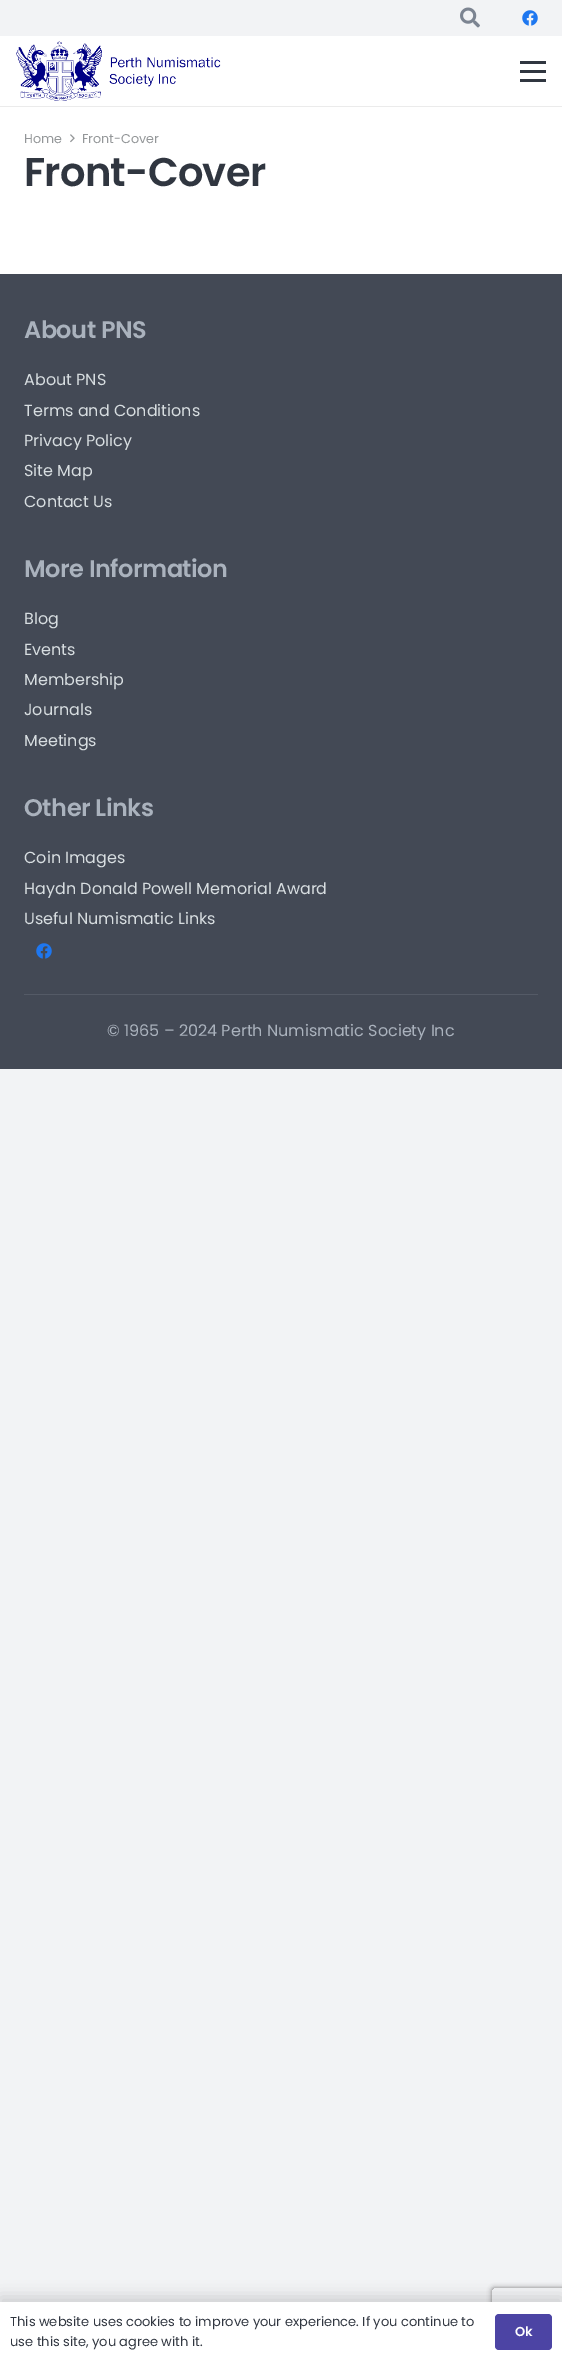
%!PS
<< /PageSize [562 2362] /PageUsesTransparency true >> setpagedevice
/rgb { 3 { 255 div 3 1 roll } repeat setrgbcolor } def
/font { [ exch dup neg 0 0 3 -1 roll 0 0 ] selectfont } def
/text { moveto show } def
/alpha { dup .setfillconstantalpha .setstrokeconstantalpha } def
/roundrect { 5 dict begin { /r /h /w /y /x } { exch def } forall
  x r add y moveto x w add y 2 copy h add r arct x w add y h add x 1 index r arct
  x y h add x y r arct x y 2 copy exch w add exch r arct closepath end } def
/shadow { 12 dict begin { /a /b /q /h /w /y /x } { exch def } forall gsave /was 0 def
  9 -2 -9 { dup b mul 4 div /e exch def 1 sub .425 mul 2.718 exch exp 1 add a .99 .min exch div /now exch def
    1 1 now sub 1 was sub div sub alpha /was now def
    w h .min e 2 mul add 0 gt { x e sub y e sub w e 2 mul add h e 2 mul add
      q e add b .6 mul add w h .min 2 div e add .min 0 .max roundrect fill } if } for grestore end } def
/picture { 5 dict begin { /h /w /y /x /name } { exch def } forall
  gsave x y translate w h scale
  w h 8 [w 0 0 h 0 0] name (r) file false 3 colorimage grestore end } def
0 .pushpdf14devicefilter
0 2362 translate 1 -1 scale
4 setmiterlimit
242 243 245 rgb
0 0 562 2362 rectfill
255 255 255 rgb
0 36 562 238 rectfill
(img_01.rgb) 460 7 20 21 picture
(img_02.rgb) 522 10 16 16 picture
235 235 235 rgb
0 106 562 1 rectfill
(img_03.rgb) 16 41 205 60 picture
48 54 64 rgb
520 70 26 3 rectfill
520 61 26 3 rectfill
520 79 26 3 rectfill
(img_04.rgb) 70 134 5 9 picture
67 73 85 rgb
0 274 562 795 rectfill
(img_05.rgb) 36 943 16 16 picture
84 90 102 rgb
24 994 514 1 rectfill
gsave
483 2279 moveto 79 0 rlineto 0 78 rlineto -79 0 rlineto closepath 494 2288 moveto 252 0 rlineto 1 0 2 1 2 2 rcurveto 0 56 rlineto 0 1 -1 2 -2 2 rcurveto -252 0 rlineto -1 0 -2 -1 -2 -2 rcurveto 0 -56 rlineto 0 -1 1 -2 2 -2 rcurveto closepath eoclip newpath
128 128 128 rgb
492 2288 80 60 2 2.5 1 shadow
grestore
0 0 0 rgb
0 2297 562 60 0 7.5 0.15 shadow
255 255 255 rgb
0 2302 562 60 rectfill
76 68 164 rgb
495 2314 57 36 4 roundrect fill
/Poppins-Regular 12.75 font
148 151 153 rgb
(Home) 24 143 text
(Front-Cover) 82 143 text
/Poppins-SemiBold 40 font
48 54 64 rgb
24 186 moveto -0.75 0 (Front-Cover) ashow
/Poppins-SemiBold 24 font
170 178 189 rgb
24 338 moveto -0.5 0 (About PNS) ashow
/Poppins-Regular 16 font
215 221 224 rgb
(About PNS) 24 385 text
(Terms and Conditions) 24 416 text
(Privacy Policy) 24 446 text
(Site Map) 24 476 text
(Contact Us) 24 507 text
/Poppins-SemiBold 24 font
170 178 189 rgb
24 577 moveto -0.5 0 (More Information) ashow
/Poppins-Regular 16 font
215 221 224 rgb
(Blog) 24 624 text
(Events) 24 655 text
(Membership) 24 685 text
(Journals) 24 715 text
(Meetings) 24 746 text
/Poppins-SemiBold 24 font
170 178 189 rgb
24 816 moveto -0.5 0 (Other Links) ashow
/Poppins-Regular 16 font
215 221 224 rgb
(Coin Images) 24 863 text
(Haydn Donald Powell Memorial Award) 24 894 text
(Useful Numismatic Links) 24 924 text
170 178 189 rgb
(© 1965 – 2024 Perth Numismatic Society Inc) 107 1036 text
/Poppins-Regular 13 font
48 54 64 rgb
(This website uses cookies to improve your experience. If you continue to) 10 2326 text
(use this site, you agree with it.) 10 2346 text
/Poppins-SemiBold 13 font
255 255 255 rgb
(Ok) 515 2336 text
.poppdf14devicefilter showpage
